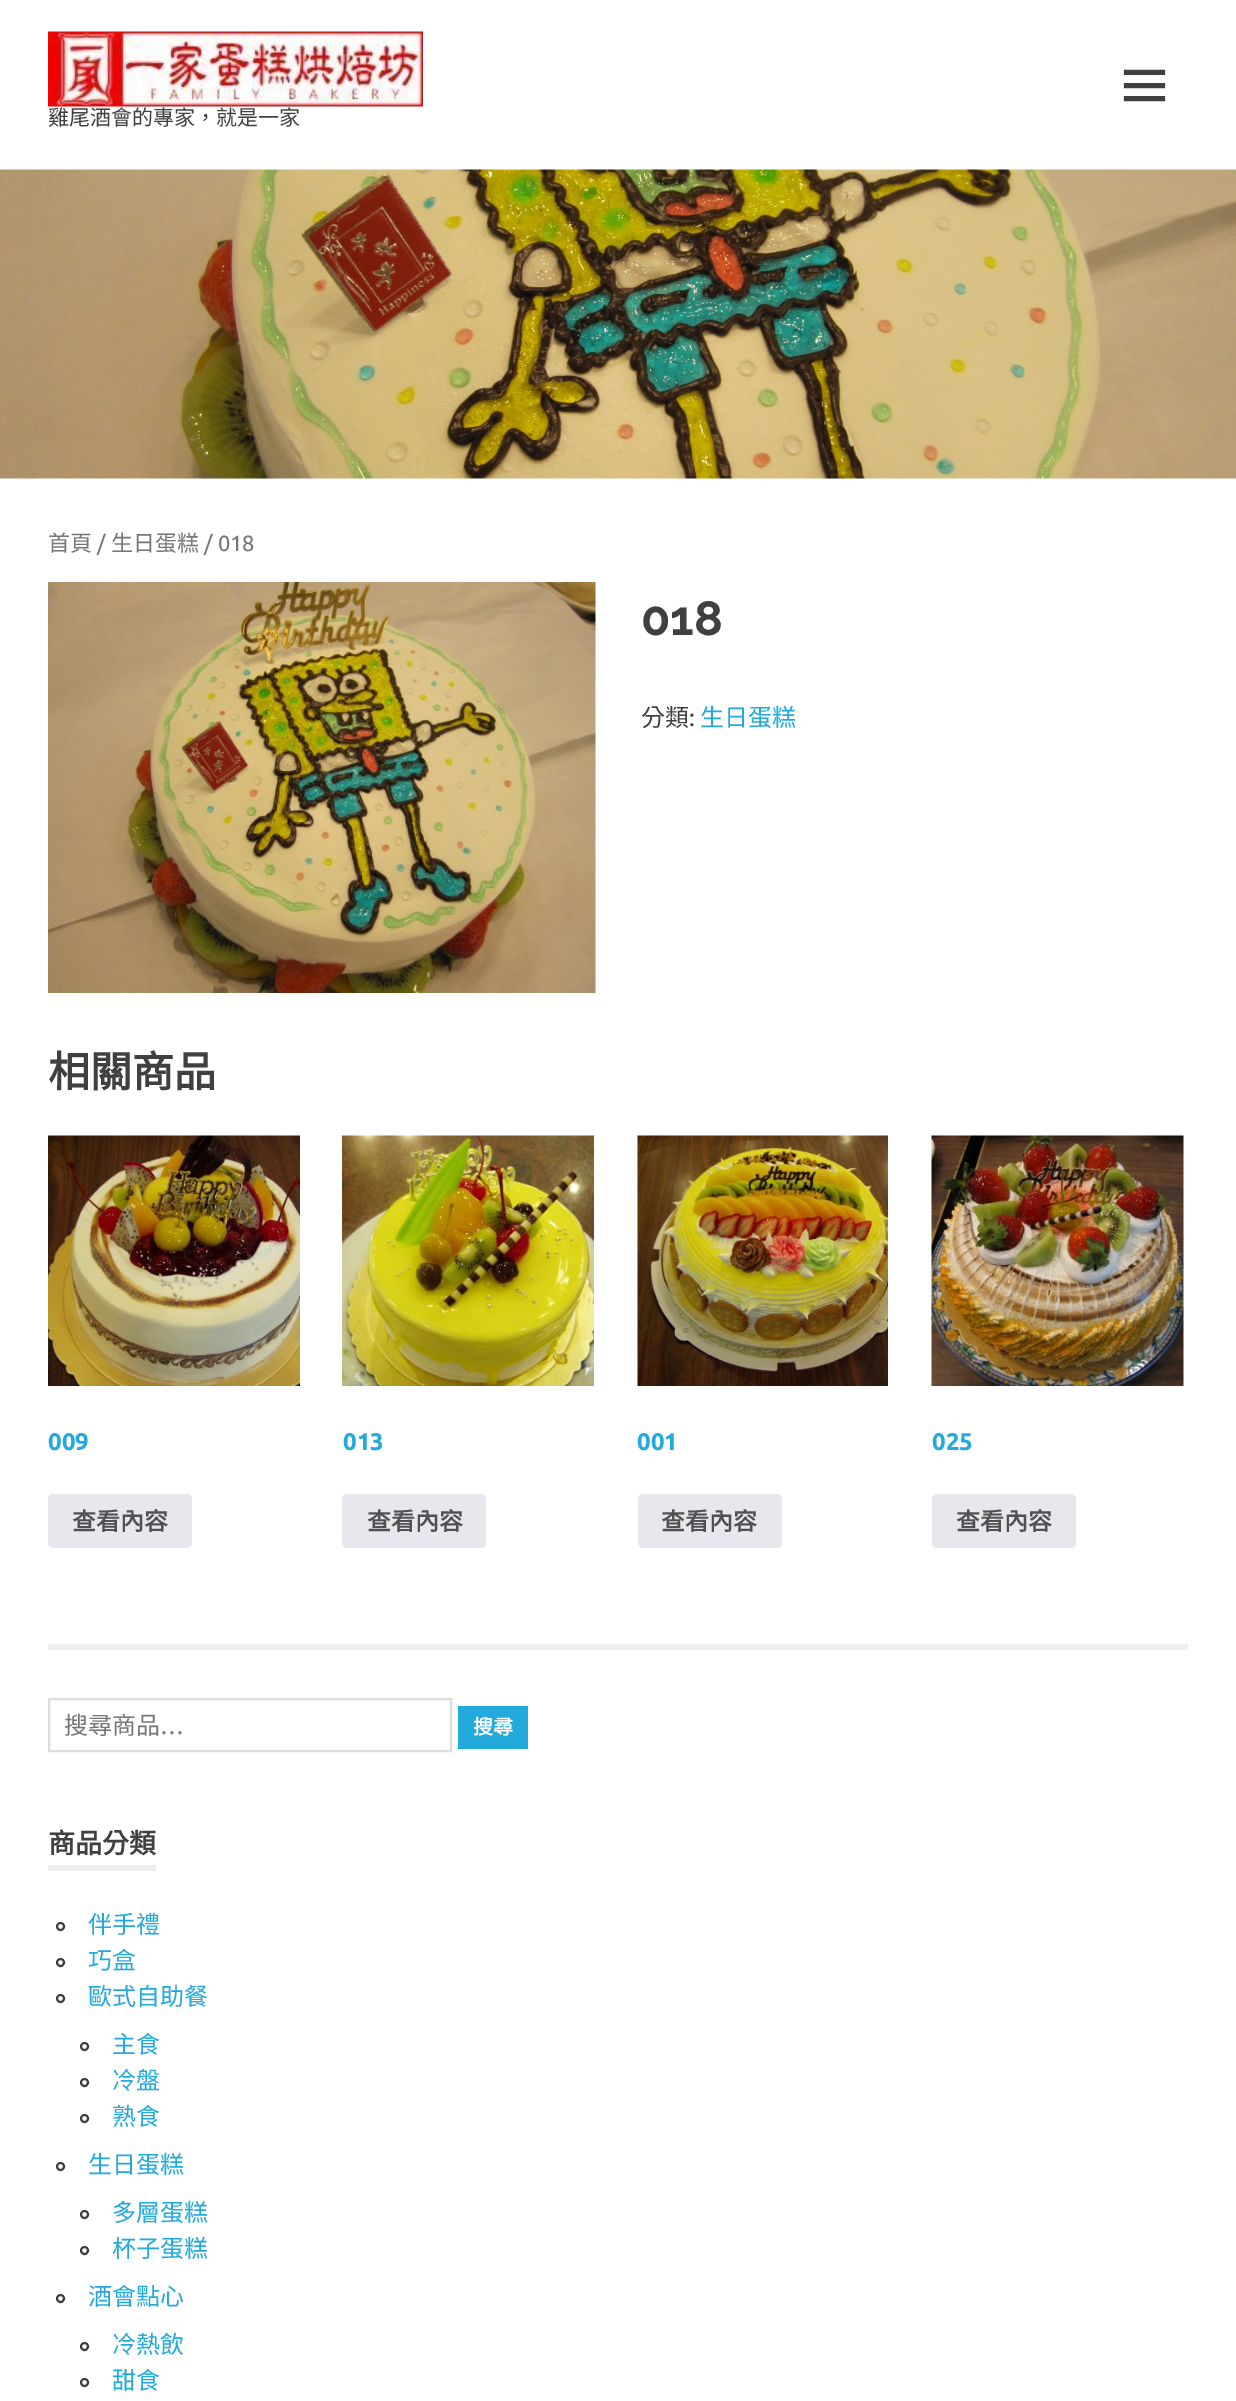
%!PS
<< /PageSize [1236 2401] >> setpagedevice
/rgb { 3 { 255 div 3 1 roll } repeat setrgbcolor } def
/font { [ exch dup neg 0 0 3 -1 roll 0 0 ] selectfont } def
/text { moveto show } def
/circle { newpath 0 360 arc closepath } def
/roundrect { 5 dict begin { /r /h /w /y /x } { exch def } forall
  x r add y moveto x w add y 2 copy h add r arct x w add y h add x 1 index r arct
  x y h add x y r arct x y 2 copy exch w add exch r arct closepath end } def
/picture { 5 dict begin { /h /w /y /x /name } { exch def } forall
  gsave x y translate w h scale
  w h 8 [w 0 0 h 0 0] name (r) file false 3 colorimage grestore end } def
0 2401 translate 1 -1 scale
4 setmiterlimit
255 255 255 rgb
0 0 1236 2401 rectfill
(img_01.rgb) 1123 69 43 33 picture
(img_02.rgb) 48 31 375 76 picture
(img_03.rgb) 0 169 1236 310 picture
(img_04.rgb) 48 582 548 411 picture
(img_05.rgb) 48 1135 252 251 picture
233 230 237 rgb
48 1494 144 54 5 roundrect fill
(img_06.rgb) 342 1135 252 251 picture
342 1494 144 54 5 roundrect fill
(img_07.rgb) 637 1135 251 251 picture
638 1494 144 54 5 roundrect fill
(img_08.rgb) 931 1135 253 251 picture
932 1494 144 54 5 roundrect fill
238 238 238 rgb
48 1644 1140 6 rectfill
221 221 221 rgb
2 setlinewidth
49 1699 402 52 rectstroke
34 170 221 rgb
458 1706 70 43 rectfill
238 238 238 rgb
48 1865 108 6 rectfill
64 64 64 rgb
60.5 1926.5 3.5 circle stroke
60.5 1962.5 3.5 circle stroke
60.5 1998.5 3.5 circle stroke
84.5 2046.5 3.5 circle stroke
84.5 2082.5 3.5 circle stroke
84.5 2118.5 3.5 circle stroke
60.5 2166.5 3.5 circle stroke
84.5 2214.5 3.5 circle stroke
84.5 2250.5 3.5 circle stroke
60.5 2298.5 3.5 circle stroke
84.5 2346.5 3.5 circle stroke
84.5 2382.5 3.5 circle stroke
/NotoSansCJKTC-Regular 21 font
(雞尾酒會的專家，就是一家) 48 125 text
/NotoSansCJKTC-Regular 22 font
118 118 118 rgb
(首頁) 48 551 text
/Ubuntu-Regular 22 font
(/) 97 551 text
/NotoSansCJKTC-Regular 22 font
(生日蛋糕) 111 551 text
/Ubuntu-Regular 22 font
(/ 018) 204 551 text
/Raleway-Bold 48 font
64 64 64 rgb
(018) 641 635 text
/NotoSansCJKTC-Regular 24 font
(分類) 641 726 text
/Ubuntu-Regular 24 font
(:) 689 726 text
/NotoSansCJKTC-Regular 24 font
34 170 221 rgb
(生日蛋糕) 700 726 text
/NotoSansCJKTC-Bold 42 font
64 64 64 rgb
(相關商品) 48 1087 text
/Ubuntu-Bold 24 font
34 170 221 rgb
(009) 48 1450 text
/NotoSansCJKTC-Bold 24 font
81 81 81 rgb
(查看內容) 72 1530 text
/Ubuntu-Bold 24 font
34 170 221 rgb
(013) 343 1450 text
/NotoSansCJKTC-Bold 24 font
81 81 81 rgb
(查看內容) 367 1530 text
/Ubuntu-Bold 24 font
34 170 221 rgb
(001) 637 1450 text
/NotoSansCJKTC-Bold 24 font
81 81 81 rgb
(查看內容) 661 1530 text
/Ubuntu-Bold 24 font
34 170 221 rgb
(025) 932 1450 text
/NotoSansCJKTC-Bold 24 font
81 81 81 rgb
(查看內容) 956 1530 text
/NotoSansCJKTC-Regular 24 font
118 118 118 rgb
(搜尋商品) 64 1734 text
/Ubuntu-Regular 24 font
(…) 160 1734 text
/NotoSansCJKTC-Bold 20 font
255 255 255 rgb
(搜尋) 473 1734 text
/NotoSansCJKTC-Bold 27 font
64 64 64 rgb
(商品分類) 48 1853 text
/NotoSansCJKTC-Regular 24 font
34 170 221 rgb
(伴手禮) 88 1933 text
(巧盒) 88 1969 text
(歐式自助餐) 88 2005 text
(主食) 112 2053 text
(冷盤) 112 2089 text
(熟食) 112 2125 text
(生日蛋糕) 88 2173 text
(多層蛋糕) 112 2221 text
(杯子蛋糕) 112 2257 text
(酒會點心) 88 2305 text
(冷熱飲) 112 2353 text
(甜食) 112 2389 text
showpage
